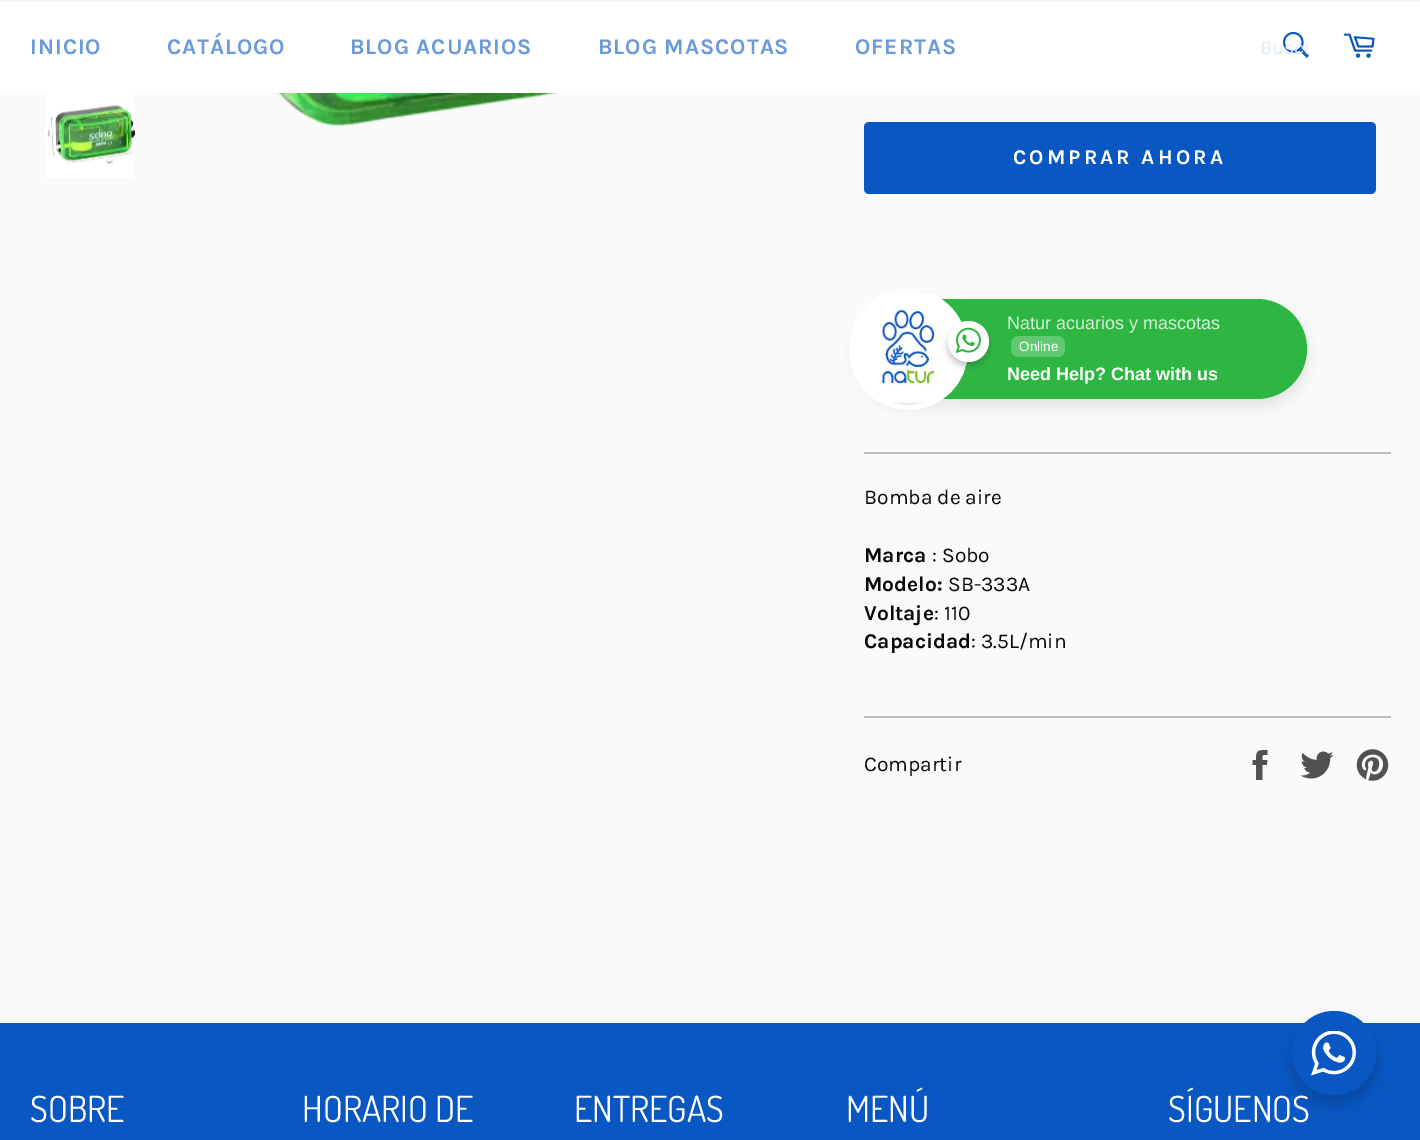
%!PS
<< /PageSize [1420 1140] /PageUsesTransparency true >> setpagedevice
/rgb { 3 { 255 div 3 1 roll } repeat setrgbcolor } def
/font { [ exch dup neg 0 0 3 -1 roll 0 0 ] selectfont } def
/text { moveto show } def
/alpha { dup .setfillconstantalpha .setstrokeconstantalpha } def
/circle { newpath 0 360 arc closepath } def
/roundrect { 5 dict begin { /r /h /w /y /x } { exch def } forall
  x r add y moveto x w add y 2 copy h add r arct x w add y h add x 1 index r arct
  x y h add x y r arct x y 2 copy exch w add exch r arct closepath end } def
/shadow { 12 dict begin { /a /b /q /h /w /y /x } { exch def } forall gsave /was 0 def
  9 -2 -9 { dup b mul 4 div /e exch def 1 sub .425 mul 2.718 exch exp 1 add a .99 .min exch div /now exch def
    1 1 now sub 1 was sub div sub alpha /was now def
    w h .min e 2 mul add 0 gt { x e sub y e sub w e 2 mul add h e 2 mul add
      q e add b .6 mul add w h .min 2 div e add .min 0 .max roundrect fill } if } for grestore end } def
/picture { 5 dict begin { /h /w /y /x /name } { exch def } forall
  gsave x y translate w h scale
  w h 8 [w 0 0 h 0 0] name (r) file false 3 colorimage grestore end } def
0 .pushpdf14devicefilter
0 1140 translate 1 -1 scale
4 setmiterlimit
250 250 250 rgb
0 0 1420 1140 rectfill
255 255 255 rgb
0 2 1420 91 rectfill
242 242 242 rgb
0 0 1420 2 rectfill
(img_01.rgb) 1282 31 27 27 picture
(img_02.rgb) 1343 33 32 25 picture
(img_03.rgb) 45 93 90 85 picture
(img_04.rgb) 278 93 283 34 picture
8 87 195 rgb
864 122 512 72 5 roundrect fill
32 32 37 rgb
855 303 453 104 52 6 0.09 shadow
45 183 66 rgb
857 299 450 100 50 roundrect fill
(img_05.rgb) 853 293 110 110 picture
255 255 255 rgb
5 setlinewidth
908.5 350.5 57 circle stroke
39 38 38 rgb
948 326 41 40 20 3 0.26 shadow
255 255 255 rgb
968.5 341.5 20.5 circle fill
(img_06.rgb) 956 327 25 26 picture
98 201 113 rgb
1011 336 54 21 8 roundrect fill
191 191 191 rgb
864 452 527 2 rectfill
864 716 527 2 rectfill
(img_07.rgb) 1252 750 16 30 picture
(img_08.rgb) 1300 751 34 28 picture
(img_09.rgb) 1356 749 33 32 picture
8 87 195 rgb
0 1023 1420 117 rectfill
0 0 0 rgb
1289 1017 90 90 45 6 0.14 shadow
/Karla-Bold 22.5 font
107 154 219 rgb
30 54 moveto 0.9 0 (INICIO) ashow
167 54 moveto 0.9 0 (CATÁLOGO) ashow
350 54 moveto 0.9 0 (BLOG ACUARIOS) ashow
598 54 moveto 0.9 0 (BLOG MASCOTAS) ashow
855 54 moveto 0.9 0 (OFERTAS) ashow
gsave
1260 36 48 23 rectclip
/Karla-Regular 19.5 font
223 233 247 rgb
(Busca) 1260 54 text
grestore
/Karla-Bold 21 font
255 255 255 rgb
1013 164 moveto 3.1 0 (COMPRAR AHORA) ashow
/LiberationSans-Regular 18 font
213 240 217 rgb
(Natur acuarios y mascotas) 1007 329 text
/LiberationSans-Regular 13.5 font
255 255 255 rgb
(Online) 1019 351 text
/LiberationSans-Bold 18 font
(Need Help? Chat with us) 1007 380 text
/Karla-Regular 21 font
8 8 8 rgb
(Bomba de aire) 864 504 text
/Karla-Bold 21 font
(Marca) 864 562 text
/Karla-Regular 21 font
(: Sobo) 932 562 text
/Karla-Bold 21 font
(Modelo:) 864 591 text
/Karla-Regular 21 font
(SB-333A) 948 591 text
/Karla-Bold 21 font
(Voltaje) 864 620 text
/Karla-Regular 21 font
(: 110) 934 620 text
/Karla-Bold 21 font
(Capacidad) 864 648 text
/Karla-Regular 21 font
(: 3.5L/min) 971 648 text
(Compartir) 864 771 text
/Dosis-Regular 36 font
255 255 255 rgb
(SOBRE) 30 1122 text
(HORARIO DE) 302 1122 text
(ENTREGAS) 574 1122 text
(MENÚ) 846 1122 text
(SÍGUENOS) 1168 1122 text
8 87 195 rgb
1334 1053 42 circle fill
(img_10.rgb) 1311 1031 45 45 picture
.poppdf14devicefilter showpage
